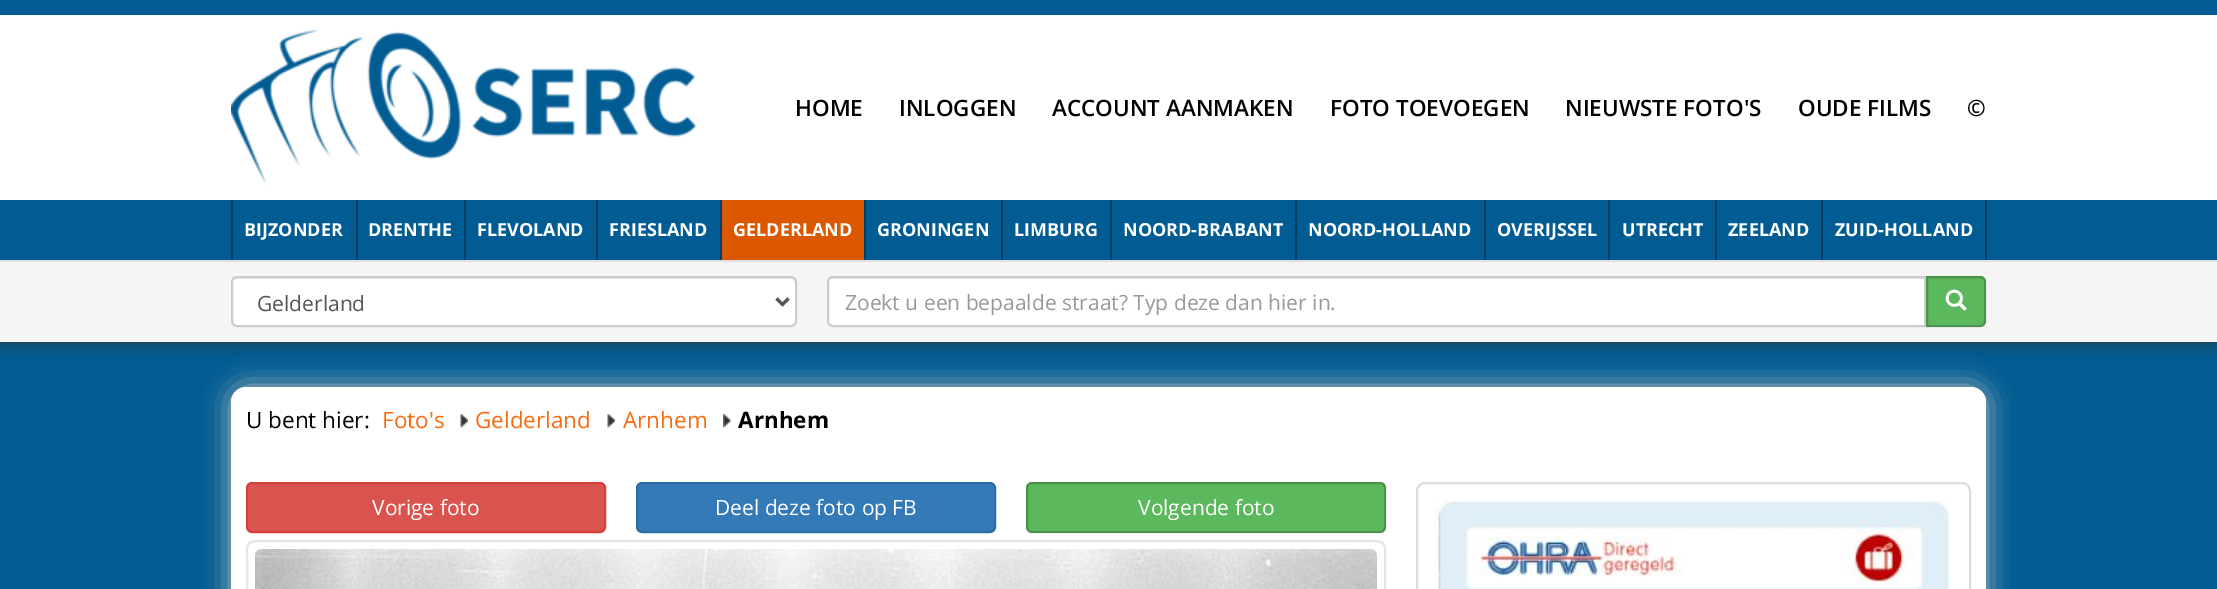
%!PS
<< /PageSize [2217 589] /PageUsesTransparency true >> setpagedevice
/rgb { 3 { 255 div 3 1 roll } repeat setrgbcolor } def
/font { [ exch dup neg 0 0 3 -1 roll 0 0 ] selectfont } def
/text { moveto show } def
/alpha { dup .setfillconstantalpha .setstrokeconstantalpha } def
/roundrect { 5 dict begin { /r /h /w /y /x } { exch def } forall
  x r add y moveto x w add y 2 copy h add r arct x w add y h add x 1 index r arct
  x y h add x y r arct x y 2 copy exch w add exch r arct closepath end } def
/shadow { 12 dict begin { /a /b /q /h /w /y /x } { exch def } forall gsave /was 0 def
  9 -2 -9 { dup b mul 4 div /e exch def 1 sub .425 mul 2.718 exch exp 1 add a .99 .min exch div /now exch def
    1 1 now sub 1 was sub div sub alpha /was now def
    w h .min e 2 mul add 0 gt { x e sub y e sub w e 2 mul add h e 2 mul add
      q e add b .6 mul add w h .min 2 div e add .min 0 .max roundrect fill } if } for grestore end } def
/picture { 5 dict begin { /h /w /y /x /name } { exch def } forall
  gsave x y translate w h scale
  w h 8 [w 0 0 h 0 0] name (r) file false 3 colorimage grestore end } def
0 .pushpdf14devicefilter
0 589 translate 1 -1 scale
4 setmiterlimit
0 92 146 rgb
0 0 2217 589 rectfill
gsave
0 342 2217 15 rectclip
51 51 51 rgb
0 0 2217 342 0 7.5 1 shadow
grestore
255 255 255 rgb
0 15 2217 185 rectfill
(img_01.rgb) 231 30 466 155 picture
0 64 102 rgb
231 200 2 60 rectfill
356 200 2 60 rectfill
464 200 2 60 rectfill
596 200 2 60 rectfill
720 200 2 60 rectfill
864 200 2 60 rectfill
219 88 0 rgb
722 200 142 60 rectfill
0 64 102 rgb
1001 200 2 60 rectfill
1110 200 2 60 rectfill
1295 200 2 60 rectfill
1484 200 2 60 rectfill
1608 200 2 60 rectfill
1715 200 2 60 rectfill
1821 200 2 60 rectfill
1985 200 2 60 rectfill
245 245 245 rgb
0 262 2217 80 rectfill
224 224 224 rgb
0 260 2217 2 rectfill
255 255 255 rgb
231 276 566 51 6 roundrect fill
236 236 236 rgb
237 279 moveto 553 0 rlineto 3 0 5 2 5 5 rcurveto 0 -1 rlineto 0 -3 -2 -5 -5 -5 rcurveto -552 0 rlineto -2 0 -3 1 -4 2 rcurveto closepath fill
204 204 204 rgb
2 setlinewidth
232 277 564 49 5 roundrect stroke
85 85 85 rgb
3 setlinewidth
776.5 298.5 moveto 6 6 rlineto 6 -6 rlineto stroke
255 255 255 rgb
833 276 moveto 1093 0 rlineto 0 51 rlineto -1093 0 rlineto -3.5 0 -6 -2.5 -6 -6 rcurveto 0 -39 rlineto 0 -3.5 2.5 -6 6 -6 rcurveto closepath fill
236 236 236 rgb
832 279 moveto 1092 0 rlineto 0 47 rlineto 1 0 rlineto 0 -48 rlineto -1092 0 rlineto -3 0 -5 3 -5 6 rcurveto 0 -3 2 -5 4 -5 rcurveto closepath fill
204 204 204 rgb
2 setlinewidth
833 277 moveto 1092 0 rlineto 0 49 rlineto -1092 0 rlineto -3 0 -5 -2 -5 -5 rcurveto 0 -39 rlineto 0 -3 2 -5 5 -5 rcurveto closepath stroke
92 184 92 rgb
1926 276 moveto 54 0 rlineto 3.5 0 6 2.5 6 6 rcurveto 0 39 rlineto 0 3.5 -2.5 6 -6 6 rcurveto -54 0 rlineto closepath fill
0.2 alpha
0 0 0 rgb
1927 277 moveto 53 0 rlineto 3 0 5 2 5 5 rcurveto 0 39 rlineto 0 3 -2 5 -5 5 rcurveto -53 0 rlineto closepath stroke
1 alpha
(img_02.rgb) 1945 289 22 22 picture
191 191 191 rgb
231 387 1755 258 15 13.5 1 shadow
255 255 255 rgb
231 387 1755 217 15 roundrect fill
(img_03.rgb) 460 414 8 14 picture
(img_04.rgb) 607 414 8 14 picture
(img_05.rgb) 723 414 8 14 picture
217 83 79 rgb
247 483 358 49 5 roundrect gsave fill grestore
212 63 58 rgb
stroke
51 122 183 rgb
637 483 358 49 5 roundrect gsave fill grestore
46 109 164 rgb
stroke
92 184 92 rgb
1026 482 360 51 6 roundrect fill
0.2 alpha
0 0 0 rgb
1027 483 358 49 5 roundrect stroke
1 alpha
228 231 232 rgb
247 541 1138 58 8 roundrect stroke
(img_06.rgb) 255 549 1122 40 picture
221 221 221 rgb
1417 483 553 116 8 roundrect stroke
(img_07.rgb) 1433 498 518 91 picture
/OpenSans-SemiBold 22.5 font
0 0 0 rgb
(HOME) 795 116 text
(INLOGGEN) 899 116 text
(ACCOUNT AANMAKEN) 1052 116 text
(FOTO TOEVOEGEN) 1330 116 text
(NIEUWSTE FOTO'S) 1565 116 text
(OUDE FILMS) 1798 116 text
(©) 1967 116 text
/OpenSans-Bold 18 font
255 255 255 rgb
(BIJZONDER) 244 236 text
(DRENTHE) 368 236 text
(FLEVOLAND) 477 236 text
(FRIESLAND) 609 236 text
(GELDERLAND) 733 236 text
(GRONINGEN) 877 236 text
(LIMBURG) 1014 236 text
(NOORD-BRABANT) 1123 236 text
(NOORD-HOLLAND) 1308 236 text
(OVERIJSSEL) 1497 236 text
(UTRECHT) 1622 236 text
(ZEELAND) 1728 236 text
(ZUID-HOLLAND) 1835 236 text
/OpenSans-Regular 21 font
85 85 85 rgb
(Gelderland) 257 311 text
153 153 153 rgb
(Zoekt u een bepaalde straat? Typ deze dan hier in.) 845 310 text
/OpenSans-Regular 22.5 font
0 0 0 rgb
(U bent hier:) 246 428 text
245 107 15 rgb
(Foto's) 382 428 text
(Gelderland) 475 428 text
(Arnhem) 623 428 text
/OpenSans-Bold 22.5 font
0 0 0 rgb
(Arnhem) 738 428 text
/OpenSans-Regular 21 font
255 255 255 rgb
(Vorige foto) 372 515 text
(Deel deze foto op FB) 715 515 text
(Volgende foto) 1138 515 text
.poppdf14devicefilter showpage
